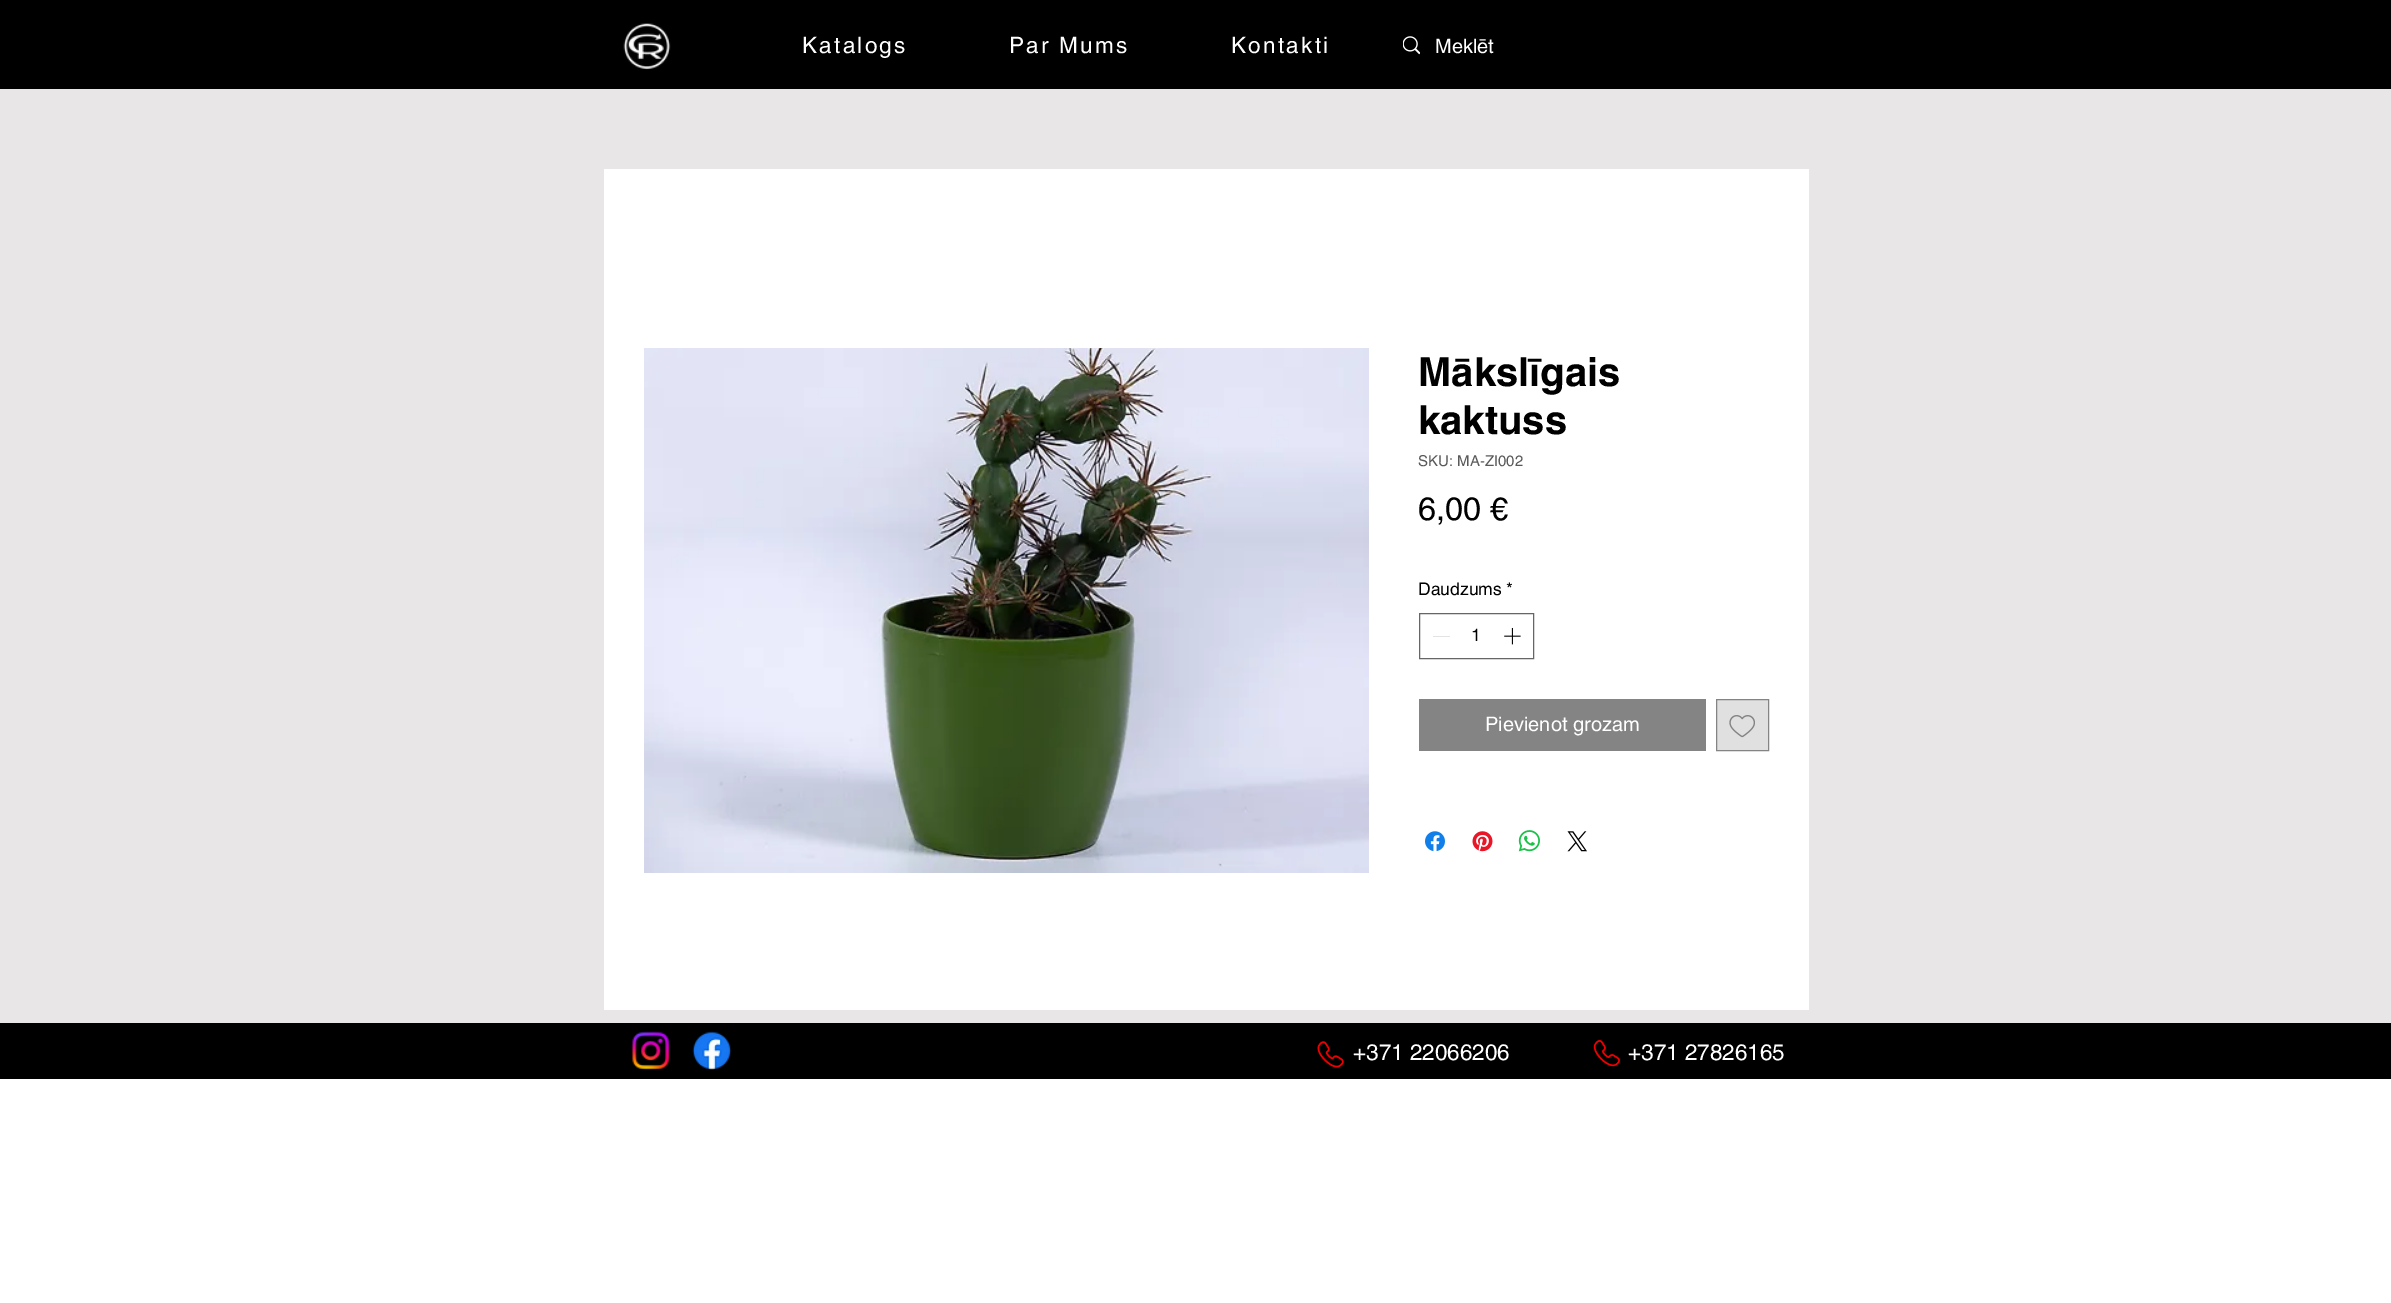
%!PS
<< /PageSize [2391 1303] >> setpagedevice
/rgb { 3 { 255 div 3 1 roll } repeat setrgbcolor } def
/font { [ exch dup neg 0 0 3 -1 roll 0 0 ] selectfont } def
/text { moveto show } def
/picture { 5 dict begin { /h /w /y /x /name } { exch def } forall
  gsave x y translate w h scale
  w h 8 [w 0 0 h 0 0] name (r) file false 3 colorimage grestore end } def
0 1303 translate 1 -1 scale
4 setmiterlimit
255 255 255 rgb
0 0 2391 1303 rectfill
0 0 0 rgb
0 0 2391 89 rectfill
(img_01.rgb) 623 23 48 47 picture
(img_02.rgb) 1403 36 17 19 picture
232 230 230 rgb
0 89 2391 934 rectfill
255 255 255 rgb
604 169 1205 841 rectfill
(img_03.rgb) 644 348 725 525 picture
102 102 102 rgb
1419.5 613.5 114 45 rectstroke
227 227 227 rgb
1433 636 17 1 rectfill
(img_04.rgb) 1504 627 17 18 picture
132 132 132 rgb
1419 699 287 52 rectfill
224 224 224 rgb
1716.5 699.5 moveto 52 0 rlineto 0 51 rlineto -52 0 rlineto closepath gsave fill grestore
132 132 132 rgb
stroke
(img_05.rgb) 1729 715 26 23 picture
(img_06.rgb) 1425 831 20 21 picture
(img_07.rgb) 1472 831 21 21 picture
(img_08.rgb) 1518 830 22 22 picture
(img_09.rgb) 1567 831 20 21 picture
0 0 0 rgb
0 1023 2391 56 rectfill
(img_10.rgb) 631 1031 39 39 picture
(img_11.rgb) 692 1031 40 39 picture
(img_12.rgb) 1317 1041 27 27 picture
(img_13.rgb) 1593 1040 27 27 picture
/helvetica-Regular 22.5 font
255 255 255 rgb
802 53 moveto 2.25 0 (Katalogs) ashow
1009 53 moveto 2.25 0 (Par Mums) ashow
1231 53 moveto 2.25 0 (Kontakti) ashow
/helvetica-Regular 20 font
(Meklēt) 1435 53 text
/helvetica-Bold 40 font
0 0 0 rgb
(Mākslīgais) 1418 386 text
(kaktuss) 1418 434 text
/helvetica-Regular 15 font
89 89 89 rgb
(SKU: MA-ZI002) 1418 466 text
/helvetica-Regular 32.5 font
0 0 0 rgb
(6,00 €) 1418 520 text
/helvetica-Regular 17.5 font
(Daudzums *) 1418 595 text
(1) 1471 641 text
/helvetica-Regular 20 font
255 255 255 rgb
(Pievienot grozam) 1485 731 text
/helvetica-Regular 22.5 font
(+371 22066206) 1353 1060 text
(+371 27826165) 1628 1060 text
showpage
